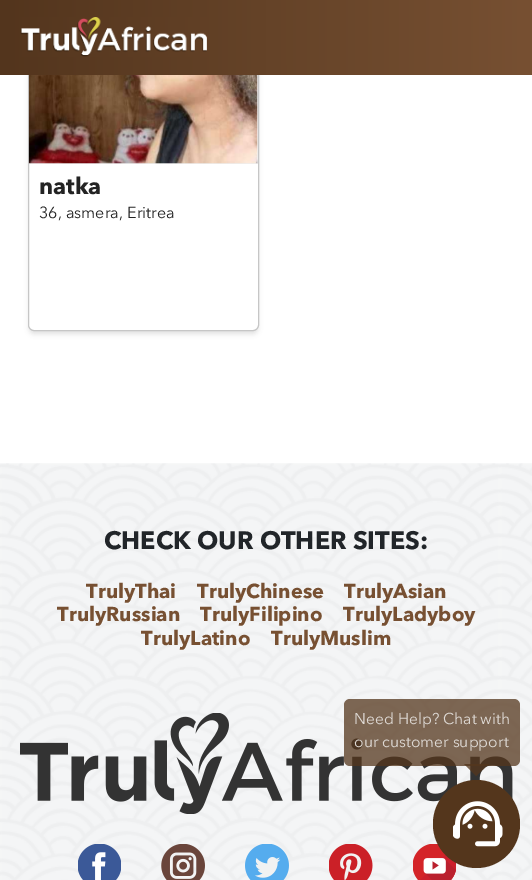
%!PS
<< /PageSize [532 880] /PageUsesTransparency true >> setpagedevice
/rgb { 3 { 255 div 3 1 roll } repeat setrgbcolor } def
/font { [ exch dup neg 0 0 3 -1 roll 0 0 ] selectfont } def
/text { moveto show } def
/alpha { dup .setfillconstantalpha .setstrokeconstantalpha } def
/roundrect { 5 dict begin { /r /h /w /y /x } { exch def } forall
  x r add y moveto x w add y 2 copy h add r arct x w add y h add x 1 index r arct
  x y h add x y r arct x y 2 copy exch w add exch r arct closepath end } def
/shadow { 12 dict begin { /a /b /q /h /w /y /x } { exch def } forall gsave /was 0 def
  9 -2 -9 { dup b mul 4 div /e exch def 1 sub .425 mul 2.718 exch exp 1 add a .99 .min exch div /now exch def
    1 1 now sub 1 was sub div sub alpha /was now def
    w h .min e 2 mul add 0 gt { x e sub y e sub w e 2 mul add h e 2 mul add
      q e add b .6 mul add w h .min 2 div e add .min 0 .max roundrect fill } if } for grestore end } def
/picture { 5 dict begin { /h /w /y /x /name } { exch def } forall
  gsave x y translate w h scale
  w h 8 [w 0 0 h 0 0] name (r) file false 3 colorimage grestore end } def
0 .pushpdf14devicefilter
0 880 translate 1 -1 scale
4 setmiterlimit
255 255 255 rgb
0 0 532 880 rectfill
gsave
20 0 moveto 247 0 rlineto 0 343 rlineto -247 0 rlineto closepath 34 -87 moveto 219 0 rlineto 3.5 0 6 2.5 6 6 rcurveto 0 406 rlineto 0 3.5 -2.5 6 -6 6 rcurveto -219 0 rlineto -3.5 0 -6 -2.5 -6 -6 rcurveto 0 -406 rlineto 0 -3.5 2.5 -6 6 -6 rcurveto closepath eoclip newpath
90 90 90 rgb
29 -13 229 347 5 2.5 0.17 shadow
grestore
198 198 198 rgb
28.5 -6.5 230 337 5.5 roundrect stroke
gsave 0 0 moveto 532 0 rlineto 0 75 rlineto -532 0 rlineto closepath clip newpath
<< /ShadingType 2 /ColorSpace /DeviceRGB /Coords [0 38 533 37] /Extend [true true] /Function << /FunctionType 2 /Domain [0 1] /C0 [0.325 0.208 0.114] /C1 [0.467 0.314 0.196] /N 1 >> >> shfill grestore
(img_01.rgb) 20 17 187 40 picture
238 238 238 rgb
29 75 229 89 rectfill
(img_02.rgb) 28 75 230 89 picture
(img_03.rgb) 0 463 532 417 picture
(img_04.rgb) 20 713 493 101 picture
(img_05.rgb) 78 844 43 36 picture
(img_06.rgb) 161 844 44 36 picture
(img_07.rgb) 245 844 44 36 picture
(img_08.rgb) 329 844 44 36 picture
(img_09.rgb) 413 844 43 36 picture
0.75 alpha
84 54 28 rgb
344 699 176 67 6 roundrect fill
464 764 moveto 25 0 rlineto -13 12 rlineto closepath fill
1 alpha
433 780 87 88 43.5 roundrect fill
(img_10.rgb) 453 801 50 46 picture
/AvenirNext-Bold 23 font
35 35 35 rgb
(natka) 39 194 text
/AvenirNext-Regular 16 font
(36, asmera, Eritrea) 39 218 text
/AvenirNext-Bold 25 font
33 37 41 rgb
(CHECK OUR OTHER SITES:) 104 549 text
/AvenirNext-Bold 20 font
119 80 50 rgb
(TrulyThai) 86 598 text
(TrulyChinese) 197 598 text
(TrulyAsian) 344 598 text
(TrulyRussian) 57 621 text
(TrulyFilipino) 200 621 text
(TrulyLadyboy) 343 621 text
(TrulyLatino) 141 645 text
(TrulyMuslim) 271 645 text
/AvenirNext-Regular 15.6 font
222 217 212 rgb
(Need Help? Chat with) 354 724 text
(our customer support) 354 747 text
.poppdf14devicefilter showpage
